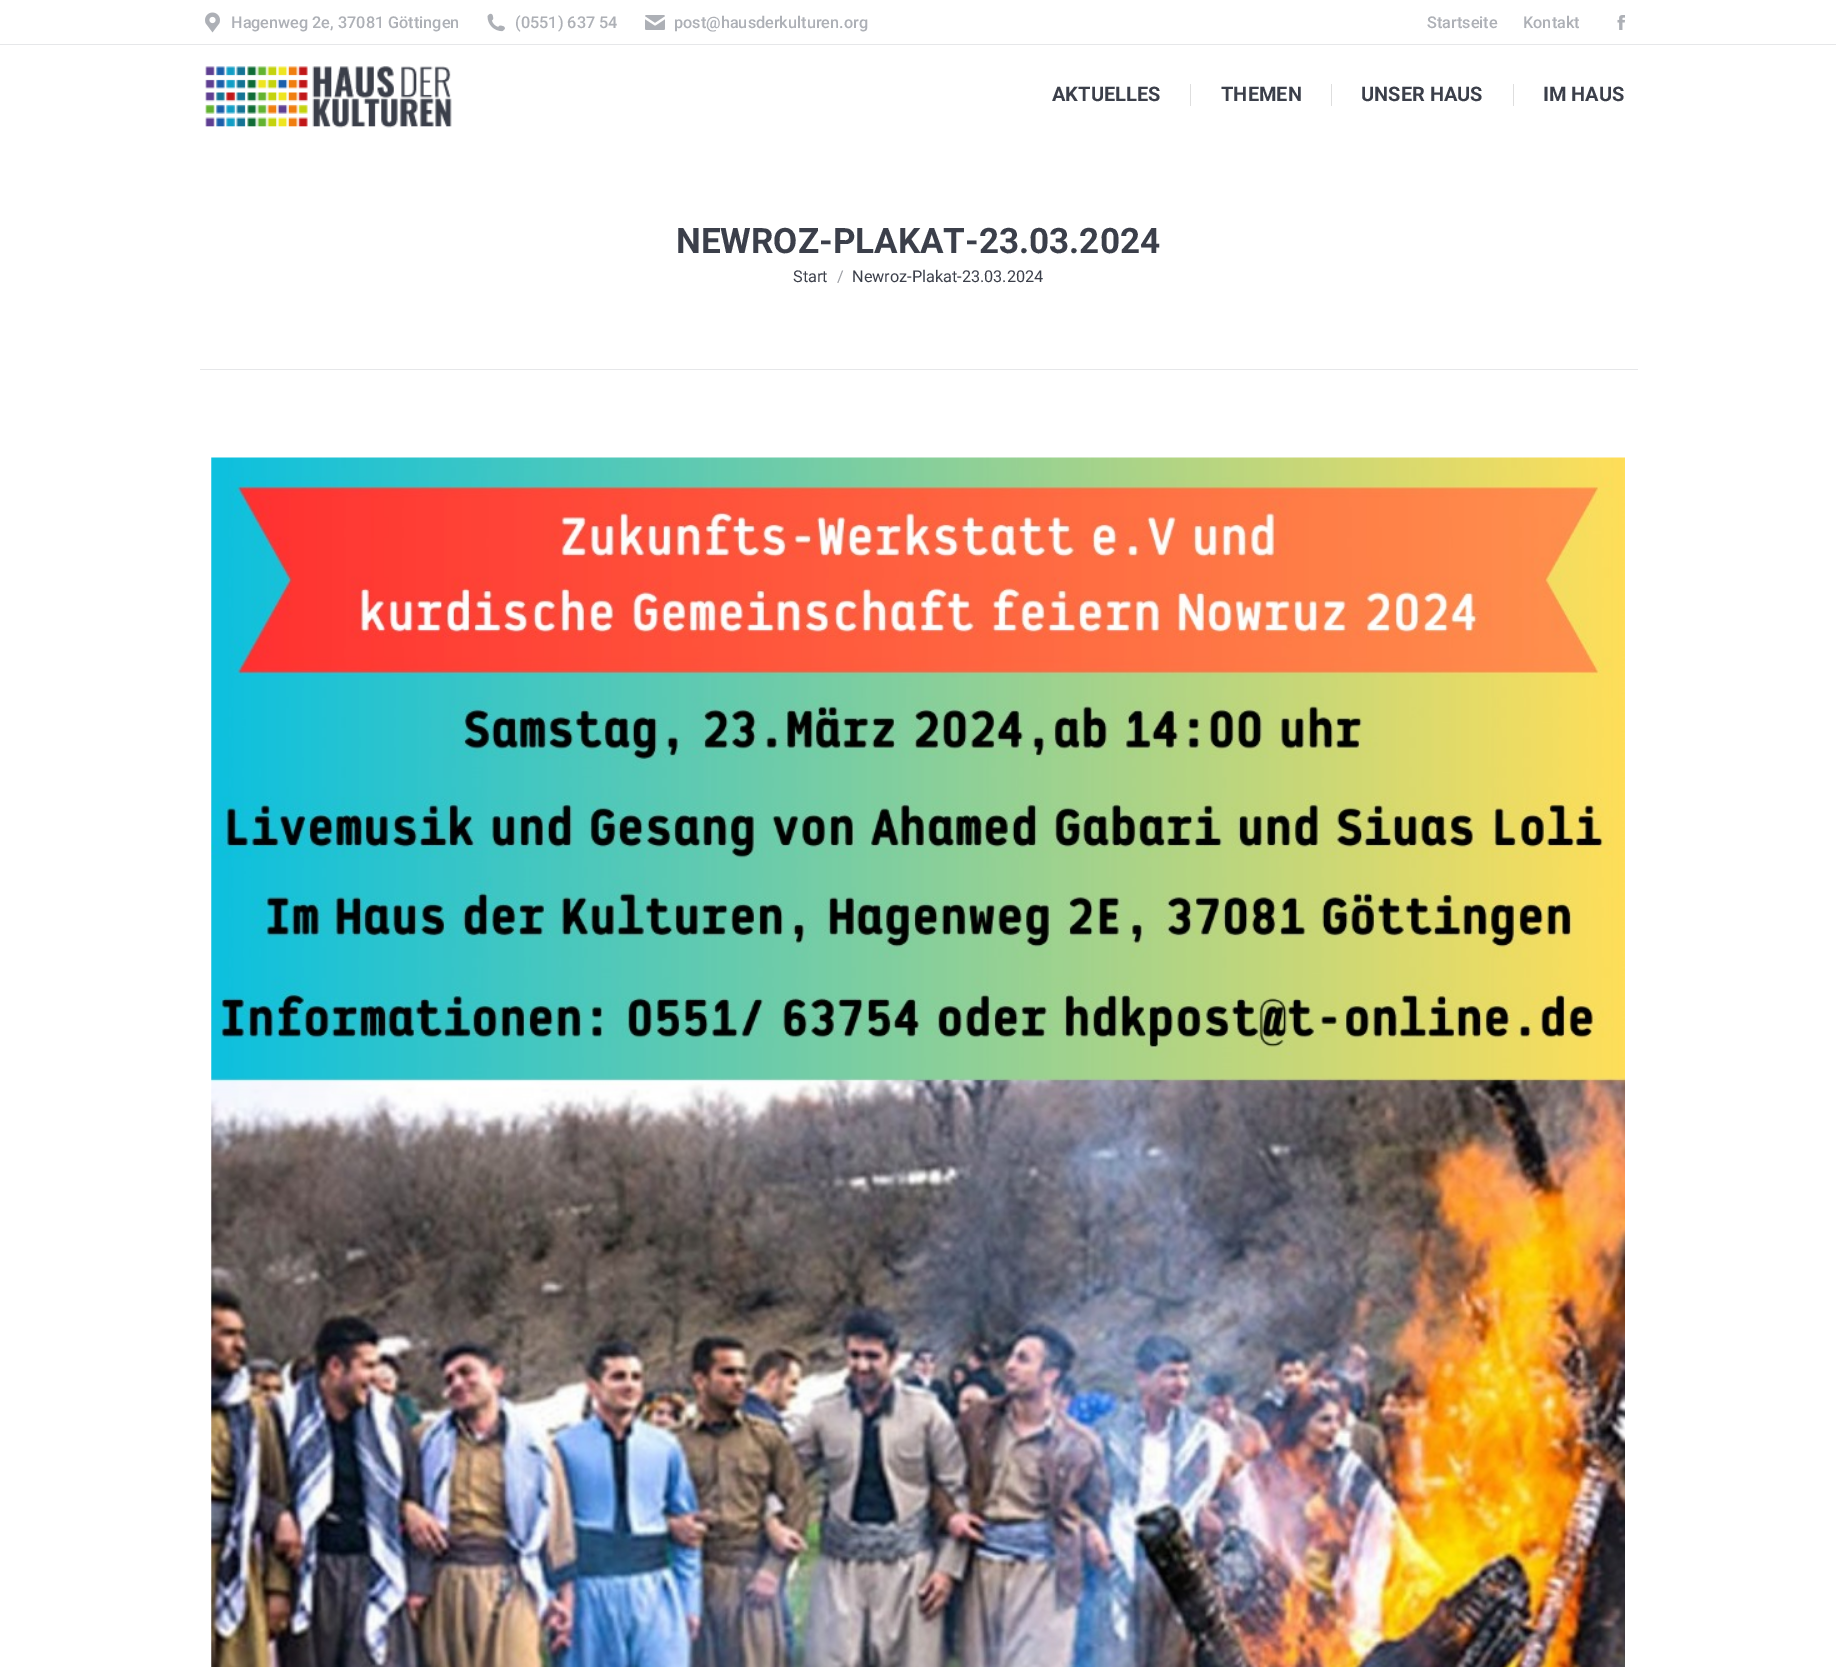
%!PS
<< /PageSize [1836 1667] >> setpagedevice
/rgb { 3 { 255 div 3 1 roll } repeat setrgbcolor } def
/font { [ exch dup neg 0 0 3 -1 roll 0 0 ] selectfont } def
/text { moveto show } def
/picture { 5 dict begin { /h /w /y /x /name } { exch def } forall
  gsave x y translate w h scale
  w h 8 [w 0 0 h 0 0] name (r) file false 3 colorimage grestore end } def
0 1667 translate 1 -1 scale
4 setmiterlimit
255 255 255 rgb
0 0 1836 1667 rectfill
(img_01.rgb) 205 12 15 21 picture
(img_02.rgb) 487 13 18 19 picture
(img_03.rgb) 645 15 20 15 picture
(img_04.rgb) 1617 15 8 15 picture
230 231 233 rgb
0 44 1836 1 rectfill
(img_05.rgb) 205 66 247 62 picture
222 222 222 rgb
1190 84 1 22 rectfill
1331 84 1 22 rectfill
1513 84 1 22 rectfill
230 231 233 rgb
200 369 1438 1 rectfill
(img_06.rgb) 211 457 1414 1210 picture
/Roboto-Medium 16.25 font
173 176 182 rgb
(Hagenweg 2e, 37081 Göttingen) 231 28 text
(\(0551\) 637 54) 515 28 text
(post@hausderkulturen.org) 674 28 text
(Startseite) 1427 28 text
(Kontakt) 1523 28 text
/Roboto-Bold 20 font
59 63 74 rgb
(AKTUELLES) 1052 101 text
(THEMEN) 1221 101 text
(UNSER HAUS) 1361 101 text
(IM HAUS) 1543 101 text
/Roboto-Bold 35 font
(NEWROZ-PLAKAT-23.03.2024) 676 253 text
/Roboto-Regular 16.25 font
(Start) 793 282 text
157 159 165 rgb
(/) 837 282 text
59 63 74 rgb
(Newroz-Plakat-23.03.2024) 852 282 text
showpage
